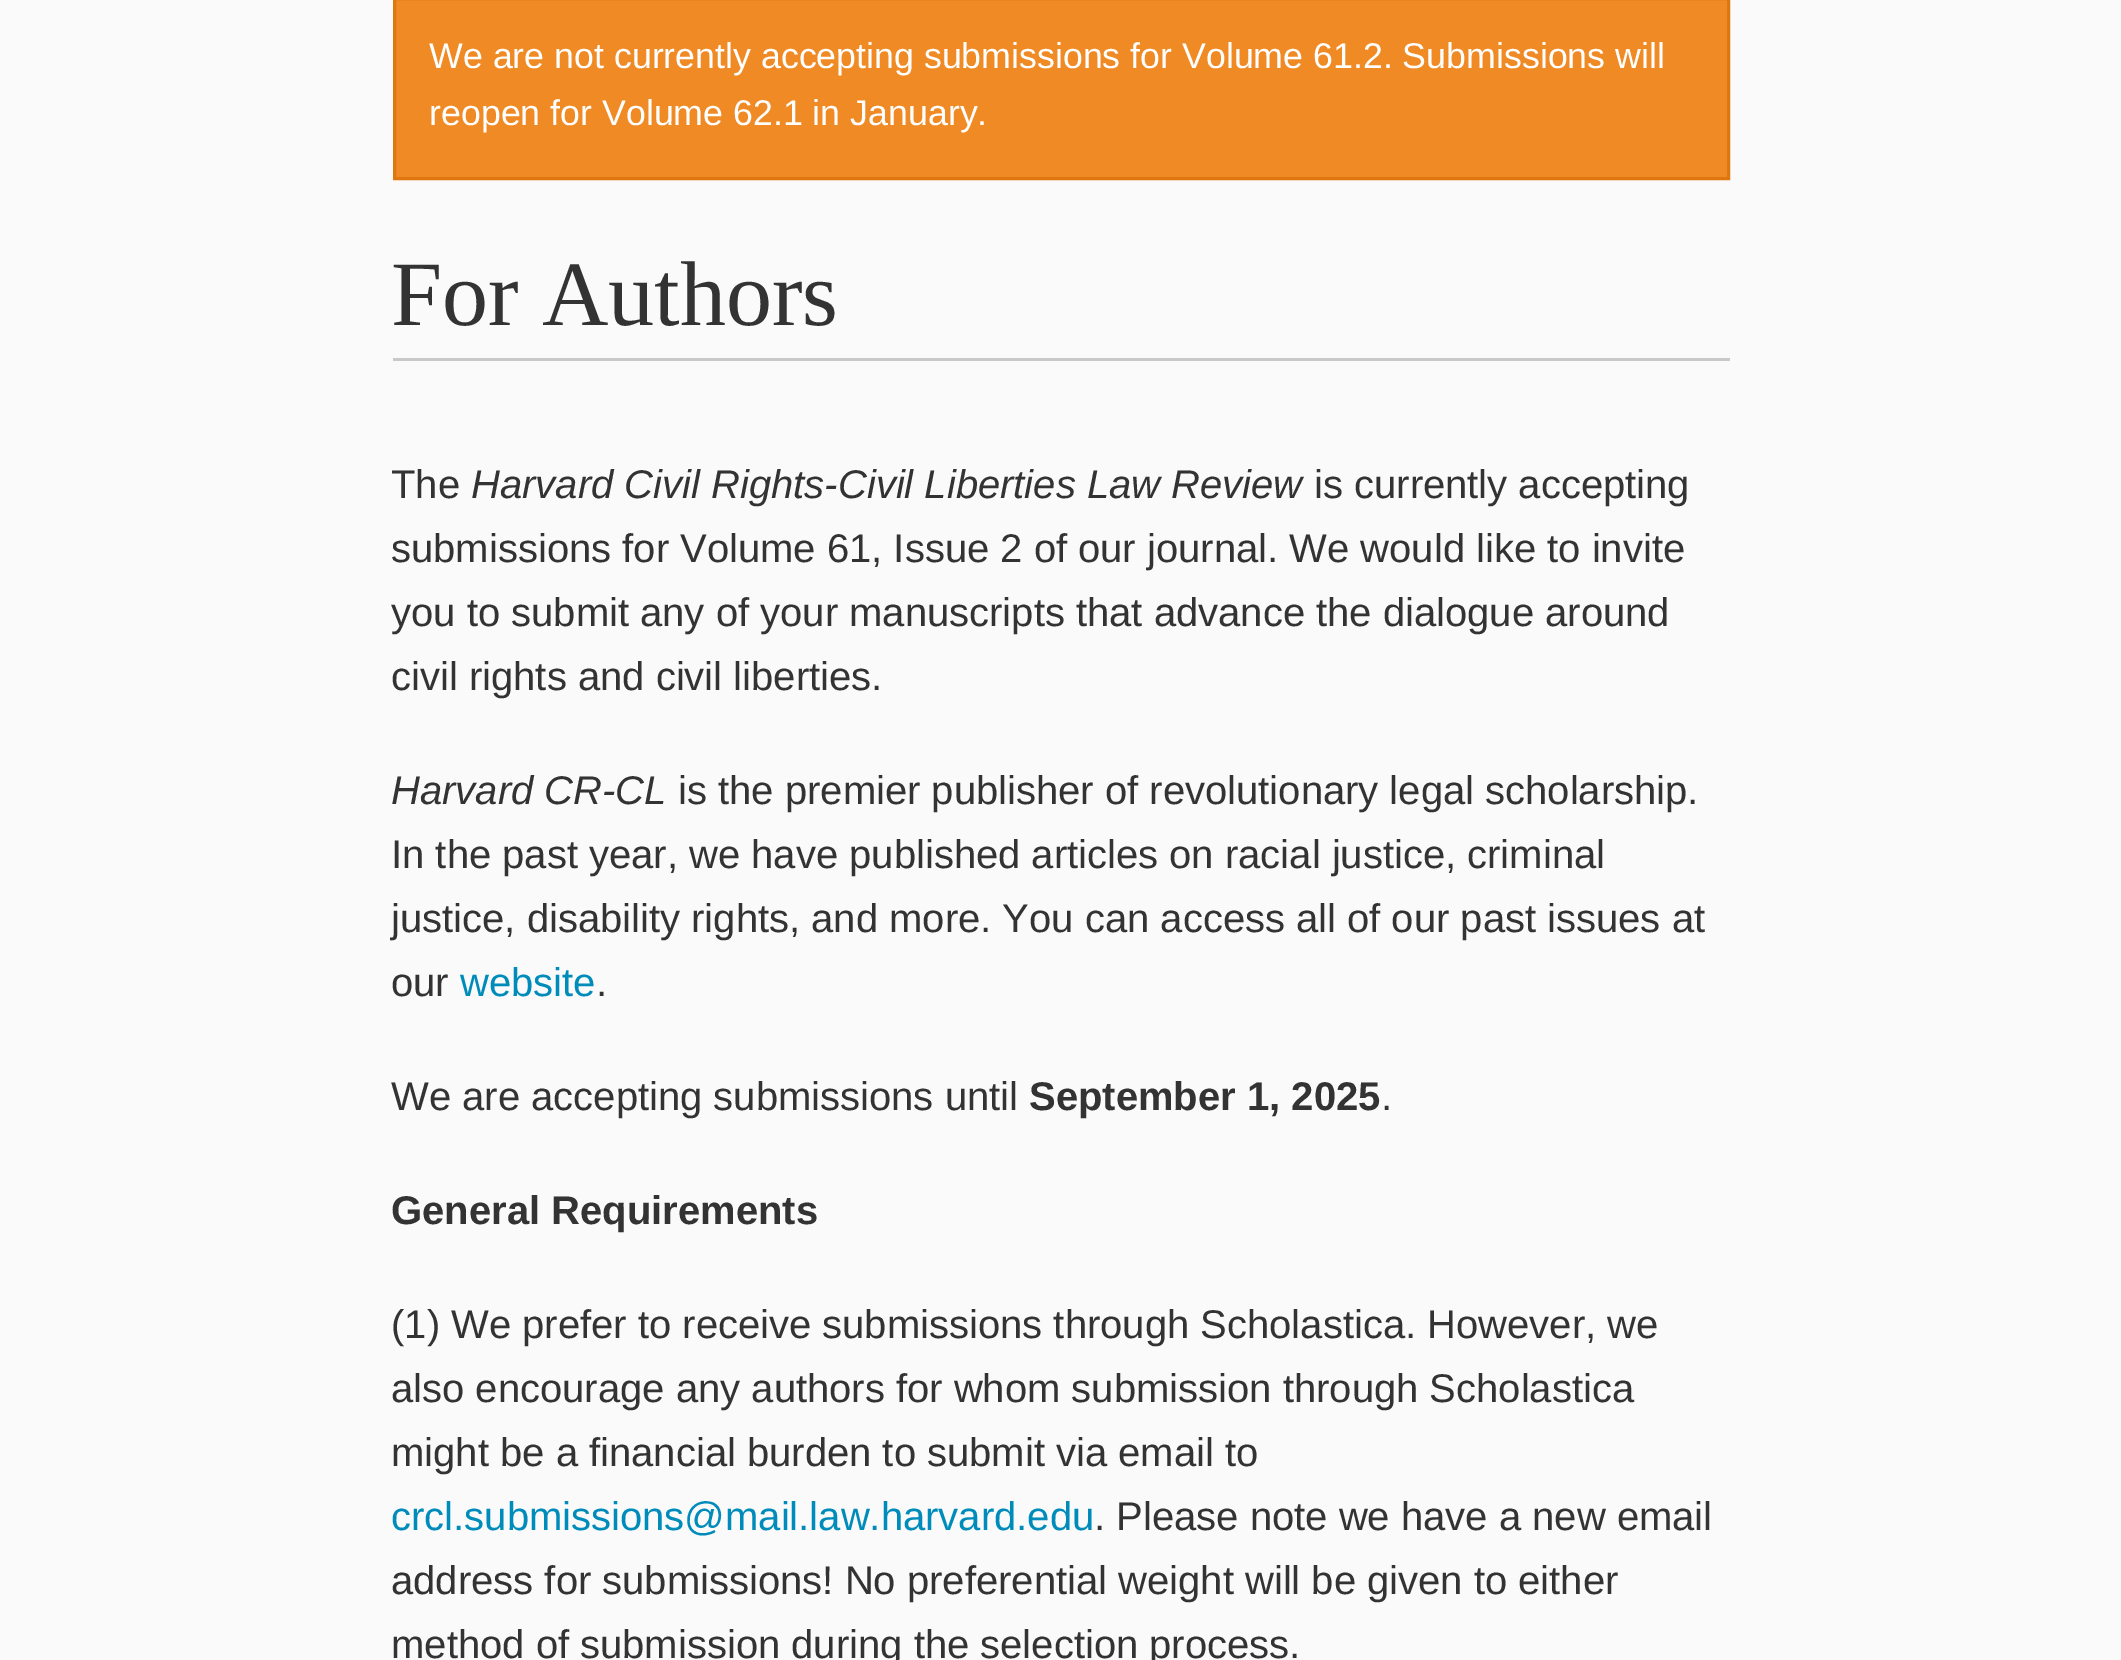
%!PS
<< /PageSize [2121 1660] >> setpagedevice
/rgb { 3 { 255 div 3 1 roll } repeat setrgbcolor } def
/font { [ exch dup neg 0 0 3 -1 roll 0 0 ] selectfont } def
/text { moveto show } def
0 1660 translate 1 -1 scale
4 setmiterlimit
250 250 250 rgb
0 0 2121 1660 rectfill
240 138 36 rgb
394.5 -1.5 moveto 1334 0 rlineto 0 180 rlineto -1334 0 rlineto closepath gsave fill grestore
222 119 15 rgb
3 setlinewidth
stroke
200 200 200 rgb
393 358 1337 3 rectfill
/LiberationSans-Regular 35.75 font
255 255 255 rgb
(We are not currently accepting submissions for Volume 61.2. Submissions will) 429 68 text
(reopen for Volume 62.1 in January.) 429 125 text
/LiberationSerif-Regular 92 font
51 51 51 rgb
(For Authors) 391 325 text
/LiberationSans-Regular 40 font
(The) 391 498 text
/LiberationSans-Italic 40 font
(Harvard Civil Rights-Civil Liberties Law Review) 471 498 text
/LiberationSans-Regular 40 font
(is currently accepting) 1314 498 text
(submissions for Volume 61, Issue 2 of our journal. We would like to invite) 391 562 text
(you to submit any of your manuscripts that advance the dialogue around) 391 626 text
(civil rights and civil liberties.) 391 690 text
/LiberationSans-Italic 40 font
(Harvard CR-CL) 391 804 text
/LiberationSans-Regular 40 font
(is the premier publisher of revolutionary legal scholarship.) 678 804 text
(In the past year, we have published articles on racial justice, criminal) 391 868 text
(justice, disability rights, and more. You can access all of our past issues at) 391 932 text
(our) 391 996 text
0 140 186 rgb
(website) 460 996 text
51 51 51 rgb
(.) 596 996 text
(We are accepting submissions until) 391 1110 text
/LiberationSans-Bold 40 font
(September 1, 2025) 1029 1110 text
/LiberationSans-Regular 40 font
(.) 1381 1110 text
/LiberationSans-Bold 40 font
(General Requirements) 391 1224 text
/LiberationSans-Regular 40 font
(\(1\) We prefer to receive submissions through Scholastica. However, we) 391 1338 text
(also encourage any authors for whom submission through Scholastica) 391 1402 text
(might be a financial burden to submit via email to) 391 1466 text
0 140 186 rgb
(crcl.submissions@mail.law.harvard.edu) 391 1530 text
51 51 51 rgb
(. Please note we have a new email) 1094 1530 text
(address for submissions! No preferential weight will be given to either) 391 1594 text
(method of submission during the selection process.) 391 1658 text
showpage
